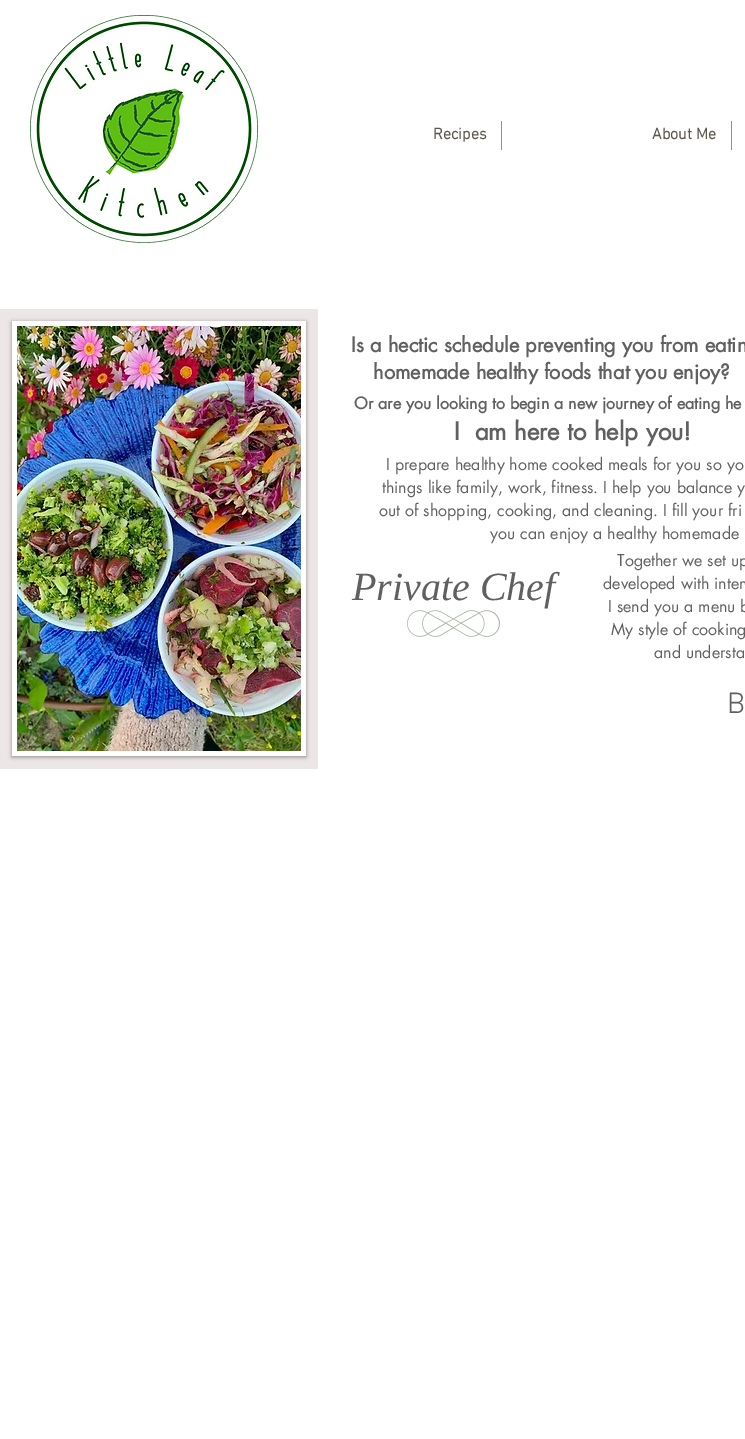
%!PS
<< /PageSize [745 1439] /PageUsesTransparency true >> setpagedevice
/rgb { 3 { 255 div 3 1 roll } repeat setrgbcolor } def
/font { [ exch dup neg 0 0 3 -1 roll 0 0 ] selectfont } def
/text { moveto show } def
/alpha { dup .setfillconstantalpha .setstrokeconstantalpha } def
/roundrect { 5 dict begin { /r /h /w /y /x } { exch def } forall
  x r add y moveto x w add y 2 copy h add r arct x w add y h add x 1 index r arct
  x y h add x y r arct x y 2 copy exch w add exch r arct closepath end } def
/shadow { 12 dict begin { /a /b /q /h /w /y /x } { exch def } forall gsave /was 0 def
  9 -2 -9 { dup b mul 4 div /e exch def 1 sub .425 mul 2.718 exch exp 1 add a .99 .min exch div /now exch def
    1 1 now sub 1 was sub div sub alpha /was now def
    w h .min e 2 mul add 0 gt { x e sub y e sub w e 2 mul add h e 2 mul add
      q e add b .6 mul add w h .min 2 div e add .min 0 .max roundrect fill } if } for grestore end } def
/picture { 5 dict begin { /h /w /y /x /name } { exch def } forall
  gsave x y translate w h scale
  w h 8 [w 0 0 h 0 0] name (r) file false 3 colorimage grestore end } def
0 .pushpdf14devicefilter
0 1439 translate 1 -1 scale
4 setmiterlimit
255 255 255 rgb
0 0 745 1439 rectfill
(img_01.rgb) 30 15 228 228 picture
144 144 144 rgb
501 121 1 29 rectfill
731 121 1 29 rectfill
237 230 230 rgb
0 309 318 460 rectfill
0 0 0 rgb
12 322 294 435 0 2 0.4 shadow
255 255 255 rgb
12 321 294 435 rectfill
(img_02.rgb) 17 326 284 425 picture
(img_03.rgb) 407 610 93 27 picture
/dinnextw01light-Bold 16 font
93 86 76 rgb
(Recipes) 433 139 text
(About Me) 652 139 text
/futura-Bold 20 font
96 96 96 rgb
(Is a hectic schedule preventing you from eatin) 351 352 text
(homemade healthy foods that you enjoy?) 373 379 text
/futura-Bold 16 font
(Or are you looking to begin a new journey of eating he) 354 409 text
/futura-Bold 24 font
(I  am here to help you!) 454 440 text
/futura-Regular 16 font
(I prepare healthy home cooked meals for you so yo) 386 470 text
(things like family, work, fitness. I help you balance y) 382 493 text
(out of shopping, cooking, and cleaning. I fill your fri) 379 516 text
(you can enjoy a healthy homemade) 490 539 text
/LiberationSerif-Italic 40 font
(Private Chef) 352 600 text
/futura-Regular 16 font
(Together we set up) 617 566 text
(developed with inten) 603 589 text
(I send you a menu b) 608 612 text
(My style of cooking) 611 635 text
(and understa) 654 658 text
/dinnextw01light-Light 30 font
(B) 727 713 text
.poppdf14devicefilter showpage
